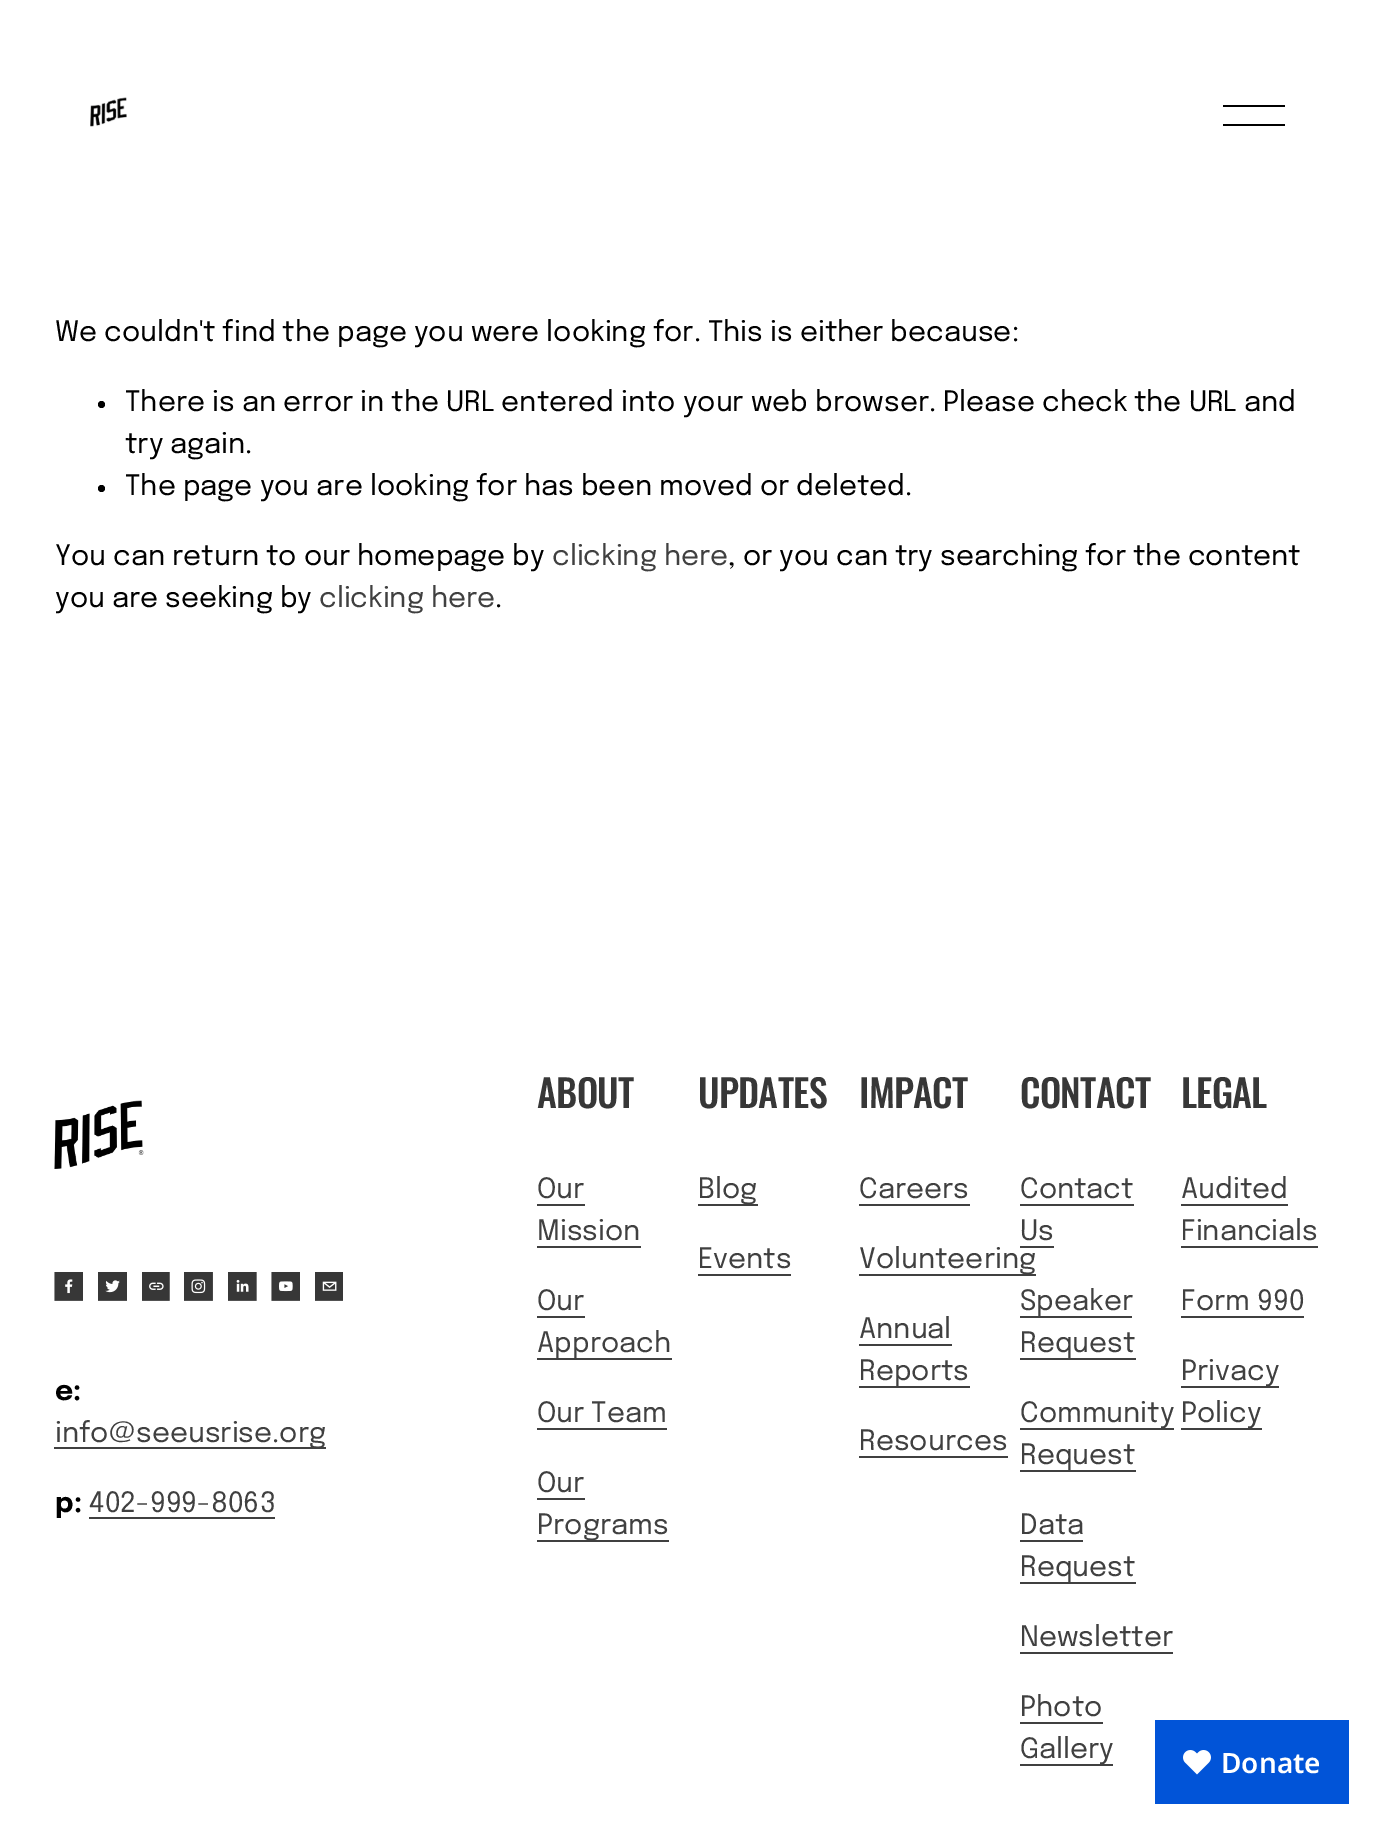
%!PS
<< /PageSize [1376 1831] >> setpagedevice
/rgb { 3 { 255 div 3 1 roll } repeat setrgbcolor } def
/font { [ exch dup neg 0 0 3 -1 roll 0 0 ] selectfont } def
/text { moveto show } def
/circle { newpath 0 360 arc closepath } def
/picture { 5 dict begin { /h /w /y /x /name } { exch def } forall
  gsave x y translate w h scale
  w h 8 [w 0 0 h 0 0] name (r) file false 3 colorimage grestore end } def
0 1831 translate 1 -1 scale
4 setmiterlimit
255 255 255 rgb
0 0 1376 1831 rectfill
(img_01.rgb) 90 97 37 30 picture
0 0 0 rgb
1223 105 62 2 rectfill
1223 124 62 2 rectfill
101.5 404.5 3.5 circle fill
101.5 488.5 3.5 circle fill
(img_02.rgb) 54 1100 90 69 picture
64 64 64 rgb
537 1204 48 2 rectfill
537 1246 104 2 rectfill
537 1316 48 2 rectfill
537 1358 135 2 rectfill
537 1428 130 2 rectfill
537 1498 48 2 rectfill
537 1540 132 2 rectfill
698 1204 60 2 rectfill
698 1274 93 2 rectfill
859 1204 111 2 rectfill
859 1274 177 2 rectfill
859 1344 93 2 rectfill
859 1386 111 2 rectfill
859 1456 149 2 rectfill
1020 1204 114 2 rectfill
1020 1246 34 2 rectfill
1020 1316 112 2 rectfill
1020 1358 116 2 rectfill
1020 1428 154 2 rectfill
1020 1470 116 2 rectfill
1020 1540 63 2 rectfill
1020 1582 116 2 rectfill
1020 1652 153 2 rectfill
1020 1722 83 2 rectfill
1020 1764 93 2 rectfill
1181 1204 107 2 rectfill
1181 1246 137 2 rectfill
1181 1316 123 2 rectfill
1181 1386 98 2 rectfill
1181 1428 81 2 rectfill
(img_03.rgb) 54 1272 29 29 picture
(img_04.rgb) 98 1272 29 29 picture
(img_05.rgb) 142 1272 28 29 picture
(img_06.rgb) 184 1272 29 29 picture
(img_07.rgb) 228 1272 29 29 picture
(img_08.rgb) 271 1272 29 29 picture
(img_09.rgb) 315 1272 28 29 picture
54 1447 272 2 rectfill
89 1517 186 2 rectfill
1 84 216 rgb
1155 1720 194 84 rectfill
(img_10.rgb) 1183 1750 28 25 picture
/Epilogue-Regular 28 font
0 0 0 rgb
(We couldn't find the page you were looking for. This is either because:) 55 341 text
(There is an error in the URL entered into your web browser. Please check the URL and) 125 411 text
(try again.) 125 453 text
(The page you are looking for has been moved or deleted.) 125 495 text
(You can return to our homepage by) 55 565 text
64 64 64 rgb
(clicking here) 552 565 text
0 0 0 rgb
(, or you can try searching for the content) 728 565 text
(you are seeking by) 55 607 text
64 64 64 rgb
(clicking here) 319 607 text
0 0 0 rgb
(.) 495 607 text
/Oswald-Medium 38 font
55 55 55 rgb
537 1108 moveto -0.75 0 (ABOUT) ashow
/Epilogue-Regular 28 font
64 64 64 rgb
(Our) 537 1198 text
(Mission) 537 1240 text
(Our) 537 1310 text
(Approach) 537 1352 text
(Our Team) 537 1422 text
(Our) 537 1492 text
(Programs) 537 1534 text
/Oswald-Medium 38 font
55 55 55 rgb
698 1108 moveto -0.75 0 (UPDATES) ashow
/Epilogue-Regular 28 font
64 64 64 rgb
(Blog) 698 1198 text
(Events) 698 1268 text
/Oswald-Medium 38 font
55 55 55 rgb
859 1108 moveto -0.75 0 (IMPACT) ashow
/Epilogue-Regular 28 font
64 64 64 rgb
(Careers) 859 1198 text
(Volunteering) 859 1268 text
(Annual) 859 1338 text
(Reports) 859 1380 text
(Resources) 859 1450 text
/Oswald-Medium 38 font
55 55 55 rgb
1020 1108 moveto -0.75 0 (CONTACT) ashow
/Epilogue-Regular 28 font
64 64 64 rgb
(Contact) 1020 1198 text
(Us) 1020 1240 text
(Speaker) 1020 1310 text
(Request) 1020 1352 text
(Community) 1020 1422 text
(Request) 1020 1464 text
(Data) 1020 1534 text
(Request) 1020 1576 text
(Newsletter) 1020 1646 text
(Photo) 1020 1716 text
(Gallery) 1020 1758 text
/Oswald-Medium 38 font
55 55 55 rgb
1181 1108 moveto -0.75 0 (LEGAL) ashow
/Epilogue-Regular 28 font
64 64 64 rgb
(Audited) 1181 1198 text
(Financials) 1181 1240 text
(Form 990) 1181 1310 text
(Privacy) 1181 1380 text
(Policy) 1181 1422 text
/Epilogue-Bold 28 font
0 0 0 rgb
(e:) 55 1400 text
/Epilogue-Regular 28 font
64 64 64 rgb
(info@seeusrise.org) 55 1442 text
/Epilogue-Bold 28 font
0 0 0 rgb
(p:) 55 1512 text
/Epilogue-Regular 28 font
64 64 64 rgb
(402-999-8063) 89 1512 text
/NotoSans-SemiBold 28 font
255 255 255 rgb
(Donate) 1221 1773 text
showpage
